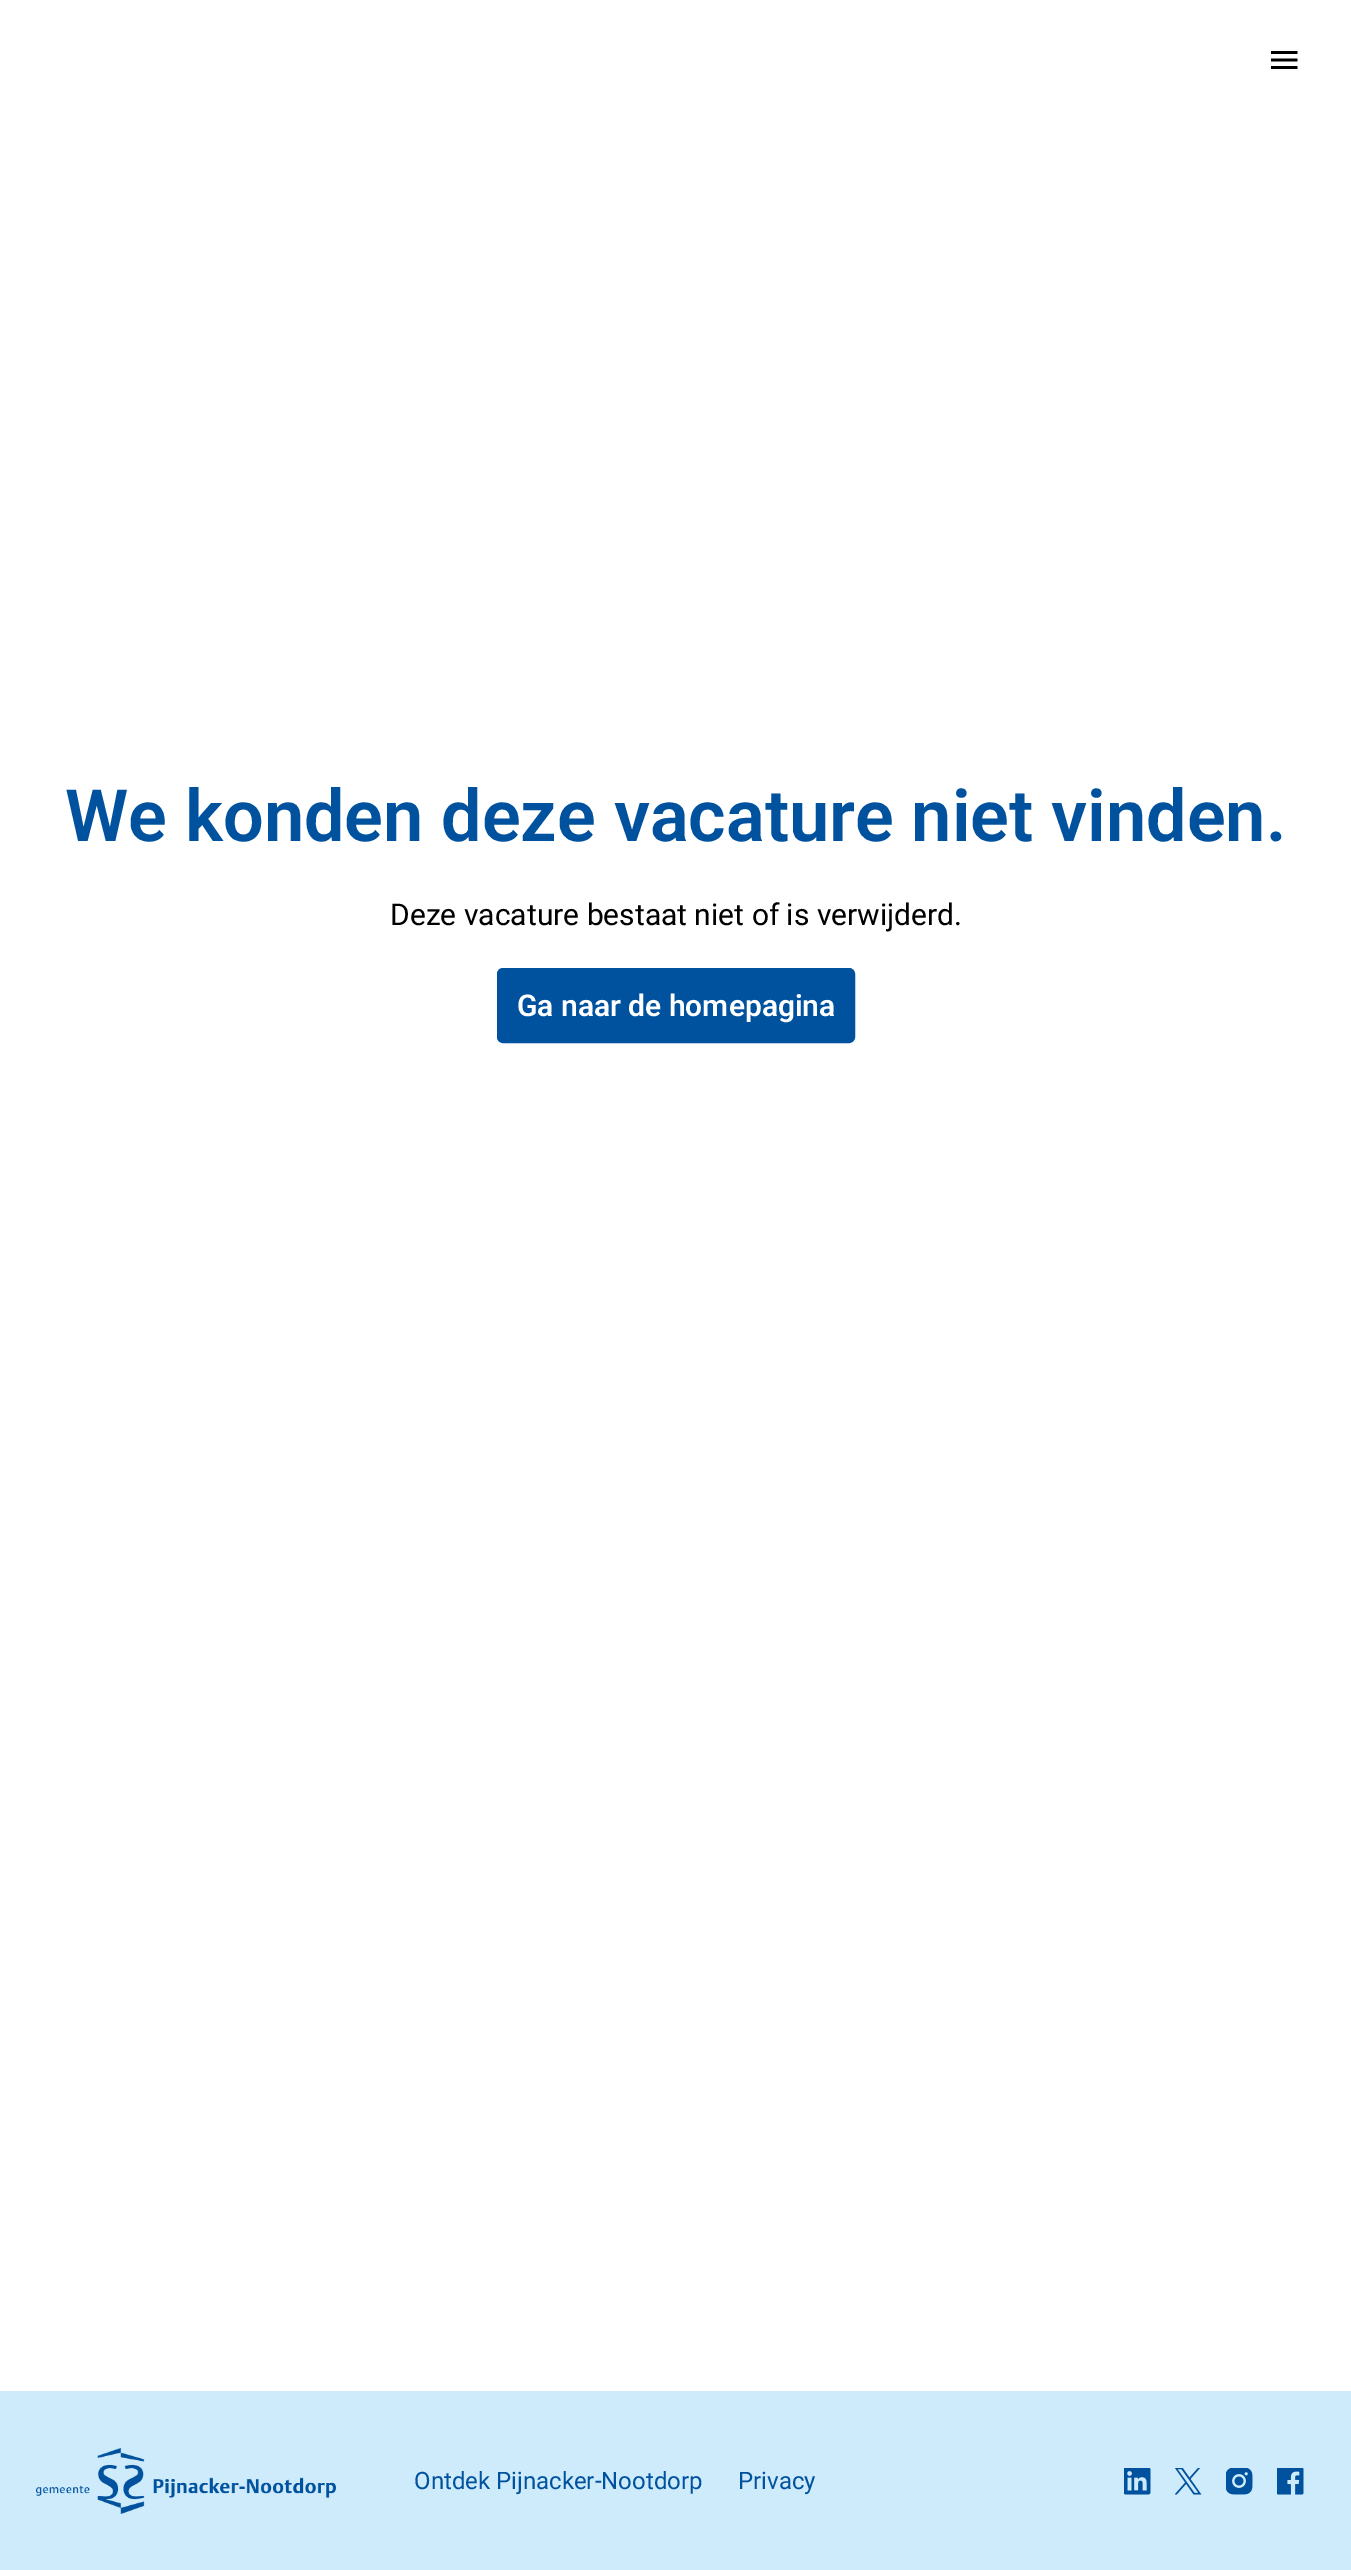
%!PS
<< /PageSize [1351 2570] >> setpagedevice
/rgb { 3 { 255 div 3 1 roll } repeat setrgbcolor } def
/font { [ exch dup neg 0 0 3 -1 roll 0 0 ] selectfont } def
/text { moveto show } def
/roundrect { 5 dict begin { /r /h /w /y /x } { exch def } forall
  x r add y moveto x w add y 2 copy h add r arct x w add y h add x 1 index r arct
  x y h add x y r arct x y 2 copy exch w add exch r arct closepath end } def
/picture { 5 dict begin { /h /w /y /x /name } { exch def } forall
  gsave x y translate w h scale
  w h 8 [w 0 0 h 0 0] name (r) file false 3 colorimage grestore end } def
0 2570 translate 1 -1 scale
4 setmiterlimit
255 255 255 rgb
0 0 1351 2570 rectfill
(img_01.rgb) 1271 51 27 18 picture
0 81 158 rgb
498 969 356 73 5 roundrect gsave fill grestore
2 setlinewidth
stroke
205 235 250 rgb
0 2391 1351 179 rectfill
(img_02.rgb) 36 2448 300 66 picture
(img_03.rgb) 1124 2468 27 27 picture
(img_04.rgb) 1175 2468 27 27 picture
(img_05.rgb) 1226 2468 27 27 picture
(img_06.rgb) 1277 2468 27 27 picture
/Roboto-SemiBold 72 font
0 81 158 rgb
(We konden deze vacature niet vinden.) 65 841 text
/Roboto-Regular 30 font
0 0 0 rgb
(Deze vacature bestaat niet of is verwijderd.) 390 925 text
/Roboto-SemiBold 30 font
255 255 255 rgb
(Ga naar de homepagina) 517 1016 text
/Roboto-Regular 24 font
0 81 158 rgb
(Ontdek Pijnacker-Nootdorp) 414 2489 text
(Privacy) 738 2489 text
showpage
